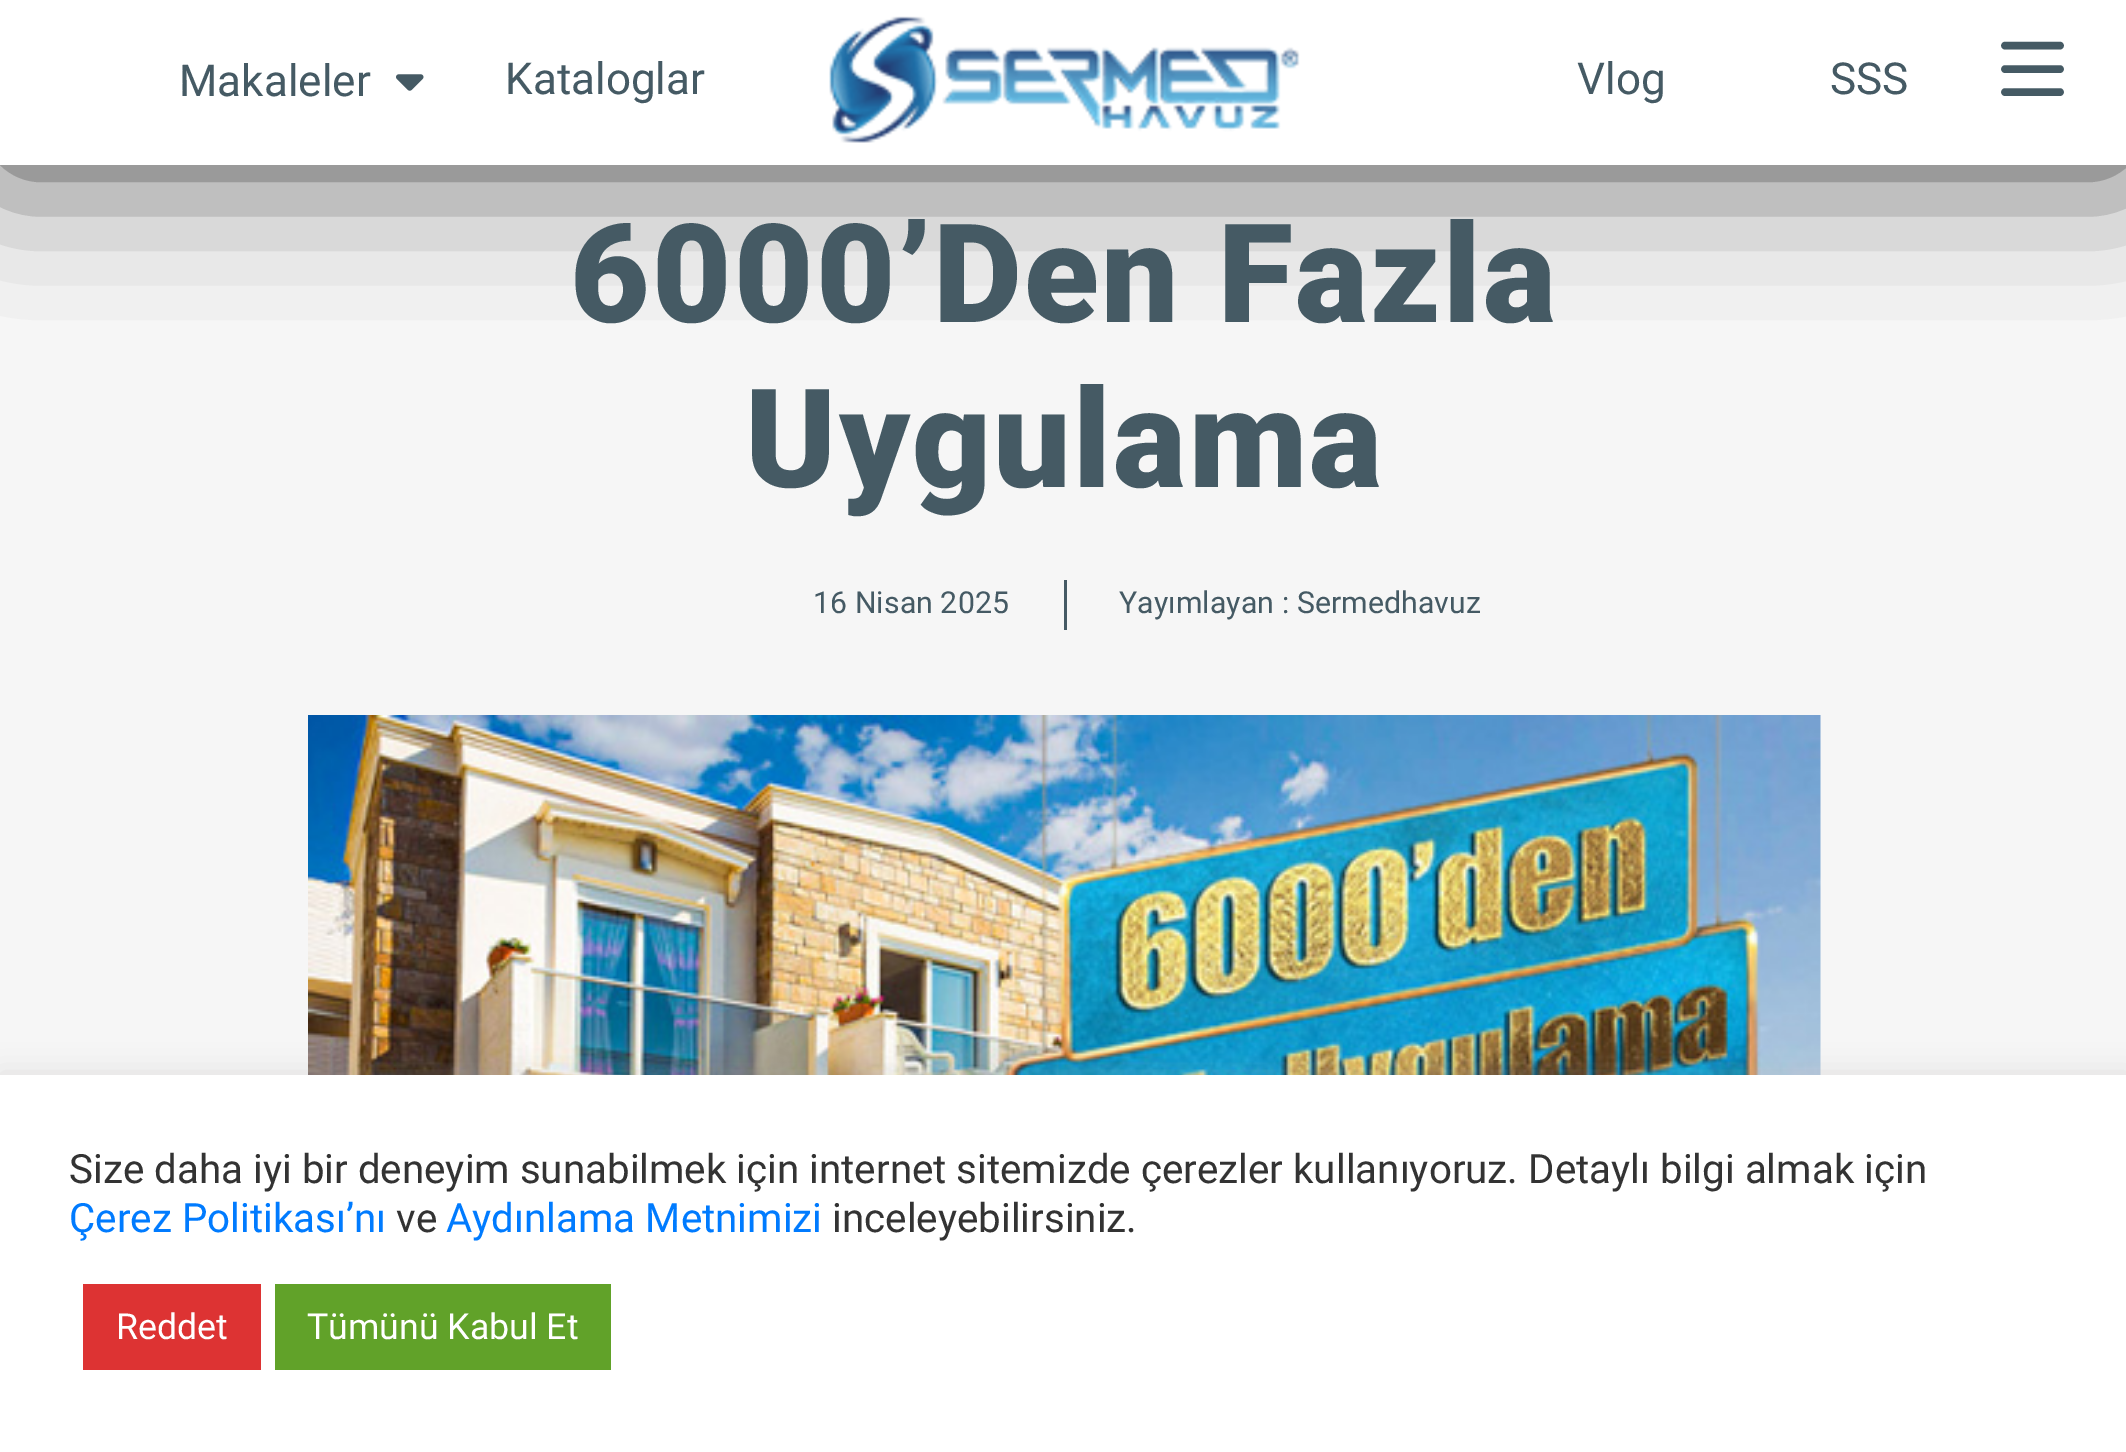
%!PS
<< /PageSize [2126 1452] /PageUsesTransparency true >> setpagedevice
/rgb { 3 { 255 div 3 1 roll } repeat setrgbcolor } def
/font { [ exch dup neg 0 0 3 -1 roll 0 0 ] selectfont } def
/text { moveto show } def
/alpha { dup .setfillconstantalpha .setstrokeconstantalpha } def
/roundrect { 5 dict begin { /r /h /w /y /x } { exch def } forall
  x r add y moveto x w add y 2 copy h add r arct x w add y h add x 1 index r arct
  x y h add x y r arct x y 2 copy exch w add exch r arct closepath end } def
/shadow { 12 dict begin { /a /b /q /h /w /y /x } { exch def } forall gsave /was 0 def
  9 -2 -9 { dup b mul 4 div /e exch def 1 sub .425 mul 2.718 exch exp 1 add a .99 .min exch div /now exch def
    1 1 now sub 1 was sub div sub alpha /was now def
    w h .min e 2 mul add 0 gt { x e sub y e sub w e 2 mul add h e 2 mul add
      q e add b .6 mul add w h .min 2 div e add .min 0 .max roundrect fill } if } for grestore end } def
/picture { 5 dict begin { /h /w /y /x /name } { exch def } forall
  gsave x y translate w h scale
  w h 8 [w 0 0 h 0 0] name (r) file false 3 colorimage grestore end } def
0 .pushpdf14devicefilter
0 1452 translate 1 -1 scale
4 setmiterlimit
246 246 246 rgb
0 0 2126 1452 rectfill
0 0 0 rgb
0 0 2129 165 0 69 0.75 shadow
255 255 255 rgb
0 0 2126 165 rectfill
(img_01.rgb) 396 74 28 17 picture
(img_02.rgb) 829 16 471 127 picture
69 90 100 rgb
7.6 setlinewidth
1 setlinecap
2060 45.5 moveto -55 0 rlineto 2005 69 moveto 55 0 rlineto 2060 92 moveto -55 0 rlineto stroke
1064 580 3 50 rectfill
(img_03.rgb) 308 715 1513 360 picture
172 171 171 rgb
0 1073 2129 376 0 14 0.3 shadow
255 255 255 rgb
0 1075 2126 377 rectfill
221 51 51 rgb
83 1284 178 86 rectfill
97 162 41 rgb
275 1284 336 86 rectfill
/Roboto-Regular 44 font
69 90 100 rgb
(Makaleler) 179 96 text
(Kataloglar) 505 94 text
(Vlog) 1577 94 text
(SSS) 1830 94 text
/Roboto-Black 137.5 font
570 322 moveto 2.25 0 (6000’Den Fazla) ashow
745 487 moveto 2.25 0 (Uygulama) ashow
/Roboto-Regular 30.25 font
813 613 moveto 0.1 0 (16 Nisan 2025) ashow
1119 613 moveto 0.1 0 (Yayımlayan : Sermedhavuz) ashow
/Roboto-Regular 40.35 font
51 51 51 rgb
(Size daha iyi bir deneyim sunabilmek için internet sitemizde çerezler kullanıyoruz. Detaylı bilgi almak için) 69 1183 text
0 123 255 rgb
(Çerez Politikası’nı) 69 1232 text
51 51 51 rgb
(ve) 396 1232 text
0 123 255 rgb
(Aydınlama Metnimizi) 446 1232 text
51 51 51 rgb
(inceleyebilirsiniz.) 832 1232 text
/Roboto-Regular 35.75 font
255 255 255 rgb
(Reddet) 116 1339 text
(Tümünü Kabul Et) 307 1339 text
.poppdf14devicefilter showpage
